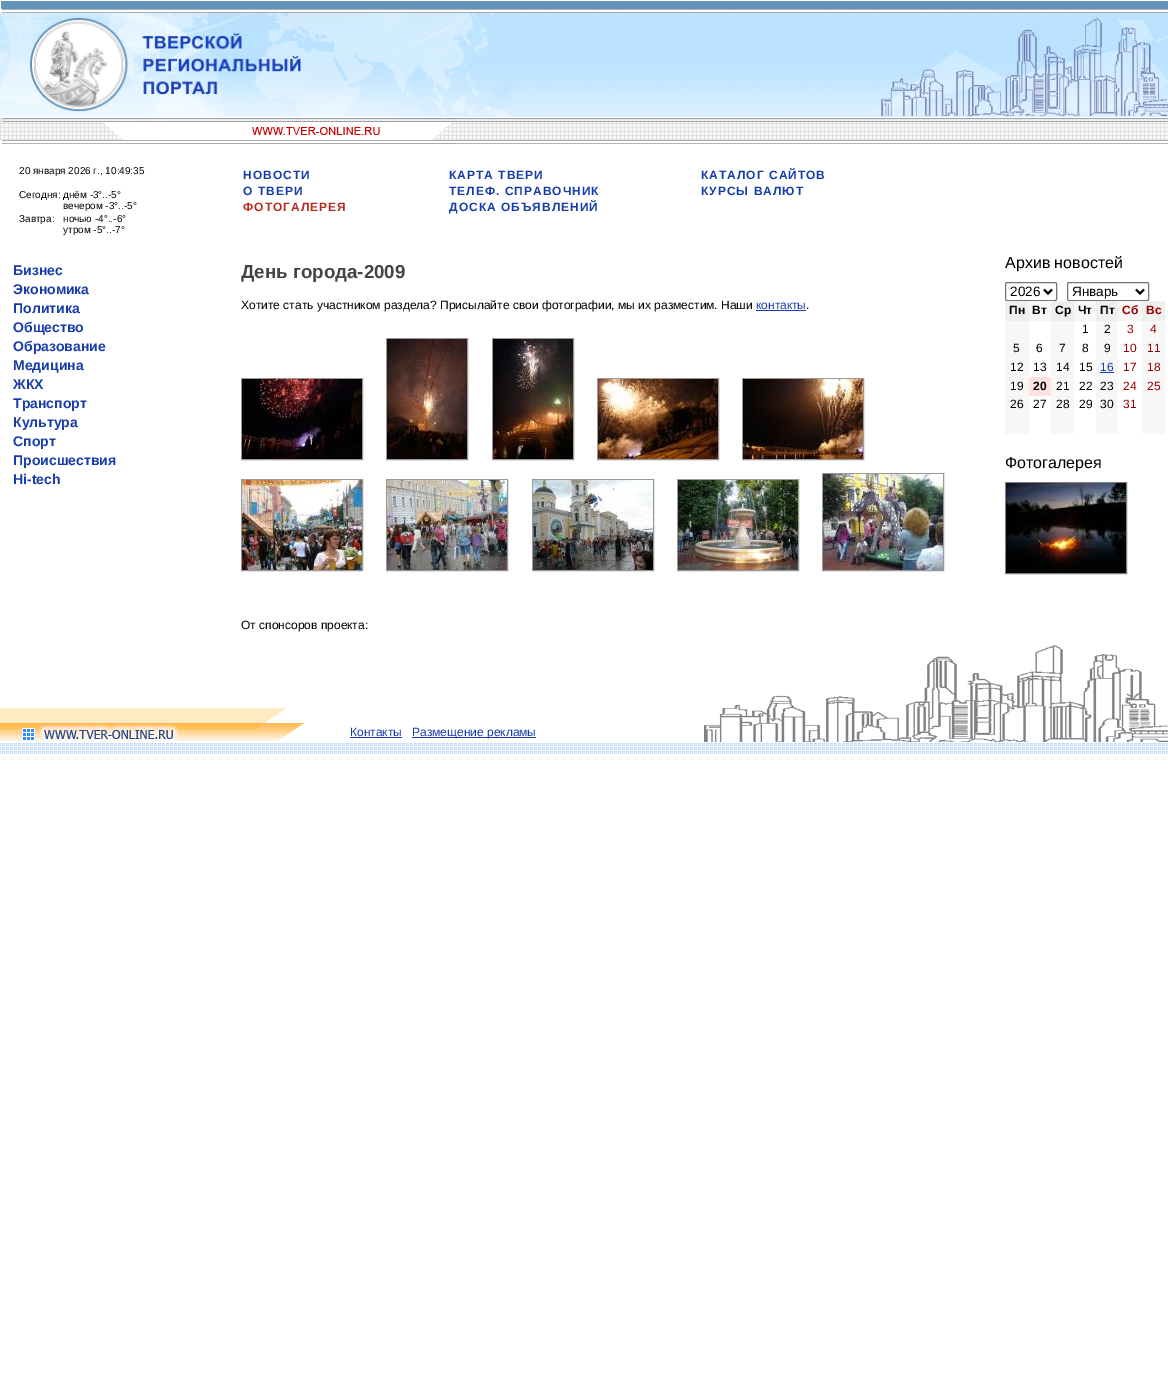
%!PS
<< /PageSize [1168 1398] >> setpagedevice
/rgb { 3 { 255 div 3 1 roll } repeat setrgbcolor } def
/font { [ exch dup neg 0 0 3 -1 roll 0 0 ] selectfont } def
/text { moveto show } def
/roundrect { 5 dict begin { /r /h /w /y /x } { exch def } forall
  x r add y moveto x w add y 2 copy h add r arct x w add y h add x 1 index r arct
  x y h add x y r arct x y 2 copy exch w add exch r arct closepath end } def
/picture { 5 dict begin { /h /w /y /x /name } { exch def } forall
  gsave x y translate w h scale
  w h 8 [w 0 0 h 0 0] name (r) file false 3 colorimage grestore end } def
0 1398 translate 1 -1 scale
4 setmiterlimit
255 255 255 rgb
0 0 1168 1398 rectfill
(img_01.rgb) 512 1 656 116 picture
(img_02.rgb) 0 1 512 116 picture
(img_03.rgb) 876 13 292 105 picture
(img_04.rgb) 30 18 272 94 picture
(img_05.rgb) 881 18 287 98 picture
(img_06.rgb) 456 118 712 26 picture
(img_07.rgb) 0 118 456 26 picture
24 61 171 rgb
756 310 50 1 rectfill
153 153 153 rgb
386.5 338.5 81 121 rectstroke
492.5 338.5 81 121 rectstroke
241.5 378.5 121 81 rectstroke
(img_08.rgb) 387 339 80 120 picture
(img_09.rgb) 493 339 80 120 picture
597.5 378.5 121 81 rectstroke
742.5 378.5 121 81 rectstroke
(img_10.rgb) 242 379 120 80 picture
(img_11.rgb) 598 379 120 80 picture
(img_12.rgb) 743 379 120 80 picture
822.5 473.5 121 97 rectstroke
241.5 479.5 121 91 rectstroke
386.5 479.5 121 91 rectstroke
532.5 479.5 121 91 rectstroke
677.5 479.5 121 91 rectstroke
(img_13.rgb) 823 474 120 96 picture
(img_14.rgb) 242 480 120 90 picture
(img_15.rgb) 387 480 120 90 picture
(img_16.rgb) 533 480 120 90 picture
(img_17.rgb) 678 480 120 90 picture
118 118 118 rgb
1005.5 282.5 51 18 1.5 roundrect stroke
0 0 0 rgb
2 setlinewidth
1044 289.5 moveto 4 4 rlineto 4 -4 rlineto stroke
118 118 118 rgb
1 setlinewidth
1067.5 282.5 81 18 1.5 roundrect stroke
0 0 0 rgb
2 setlinewidth
1136 289.5 moveto 4 4 rlineto 4 -4 rlineto stroke
239 239 239 rgb
1005 301 24 20 rectfill
247 247 247 rgb
1029 301 22 20 rectfill
239 239 239 rgb
1051 301 23 20 rectfill
247 247 247 rgb
1074 301 22 20 rectfill
239 239 239 rgb
1096 301 22 20 rectfill
247 247 247 rgb
1118 301 24 20 rectfill
239 239 239 rgb
1142 301 23 20 rectfill
247 247 247 rgb
1005 321 24 113 rectfill
1051 321 23 113 rectfill
1096 321 22 113 rectfill
1142 321 23 113 rectfill
24 61 171 rgb
1100 372 14 1 rectfill
255 225 225 rgb
1029 377 22 19 rectfill
128 128 128 rgb
1 setlinewidth
1005.5 482.5 121 91 rectstroke
(img_18.rgb) 1006 483 120 90 picture
(img_19.rgb) 0 743 1168 11 picture
(img_20.rgb) 0 708 304 33 picture
24 61 171 rgb
350 737 52 1 rectfill
412 737 124 1 rectfill
(img_21.rgb) 704 645 464 97 picture
/LiberationSans-Regular 10 font
0 0 0 rgb
(20 января 2026 г., 10:49:35) 19 174 text
(Сегодня:) 19 198 text
(днём -3°..-5°) 63 198 text
(вечером -3°..-5°) 63 209 text
(Завтра:) 19 222 text
(ночью -4°..-6°) 63 222 text
(утром -5°..-7°) 63 233 text
/LiberationSans-Bold 12 font
24 61 171 rgb
243 179 moveto 1 0 (НОВОСТИ) ashow
243 195 moveto 1 0 (О ТВЕРИ) ashow
180 44 32 rgb
243 211 moveto 1 0 (ФОТОГАЛЕРЕЯ) ashow
24 61 171 rgb
449 179 moveto 1 0 (КАРТА ТВЕРИ) ashow
449 195 moveto 1 0 (ТЕЛЕФ. СПРАВОЧНИК) ashow
449 211 moveto 1 0 (ДОСКА ОБЪЯВЛЕНИЙ) ashow
701 179 moveto 1 0 (КАТАЛОГ САЙТОВ) ashow
701 195 moveto 1 0 (КУРСЫ ВАЛЮТ) ashow
/LiberationSans-Bold 14 font
(Бизнес) 13 275 text
(Экономика) 13 294 text
(Политика) 13 313 text
(Общество) 13 332 text
(Образование) 13 351 text
(Медицина) 13 370 text
(ЖКХ) 13 389 text
(Транспорт) 13 408 text
(Культура) 13 427 text
(Спорт) 13 446 text
(Происшествия) 13 465 text
(Hi-tech) 13 484 text
/LiberationSans-Bold 18.75 font
68 68 68 rgb
(День города-2009) 241 278 text
/LiberationSans-Regular 12 font
0 0 0 rgb
(Хотите стать участником раздела? Присылайте свои фотографии, мы их разместим. Наши) 241 309 text
24 61 171 rgb
(контакты) 756 309 text
0 0 0 rgb
(.) 806 309 text
(От спонсоров проекта:) 241 629 text
/LiberationSans-Regular 16 font
(Архив новостей) 1005 268 text
/LiberationSans-Regular 13.5 font
(2026) 1010 296 text
(Январь) 1072 296 text
/LiberationSans-Bold 12 font
(Пн) 1009 314 text
(Вт) 1032 314 text
(Ср) 1055 314 text
(Чт) 1078 314 text
(Пт) 1100 314 text
153 0 0 rgb
(Сб) 1122 314 text
(Вс) 1146 314 text
/LiberationSans-Regular 12 font
0 0 0 rgb
(1) 1082 333 text
(2) 1104 333 text
153 0 0 rgb
(3) 1127 333 text
(4) 1150 333 text
0 0 0 rgb
(5) 1013 352 text
(6) 1036 352 text
(7) 1059 352 text
(8) 1082 352 text
(9) 1104 352 text
153 0 0 rgb
(10) 1123 352 text
(11) 1147 352 text
0 0 0 rgb
(12) 1010 371 text
(13) 1033 371 text
(14) 1056 371 text
(15) 1079 371 text
24 61 171 rgb
(16) 1100 371 text
153 0 0 rgb
(17) 1123 371 text
(18) 1147 371 text
0 0 0 rgb
(19) 1010 390 text
/LiberationSans-Bold 12 font
(20) 1033 390 text
/LiberationSans-Regular 12 font
(21) 1056 390 text
(22) 1079 390 text
(23) 1100 390 text
153 0 0 rgb
(24) 1123 390 text
(25) 1147 390 text
0 0 0 rgb
(26) 1010 408 text
(27) 1033 408 text
(28) 1056 408 text
(29) 1079 408 text
(30) 1100 408 text
153 0 0 rgb
(31) 1123 408 text
/LiberationSans-Regular 16 font
0 0 0 rgb
(Фотогалерея) 1005 468 text
/LiberationSans-Regular 12 font
24 61 171 rgb
(Контакты) 350 736 text
(Размещение рекламы) 412 736 text
showpage
